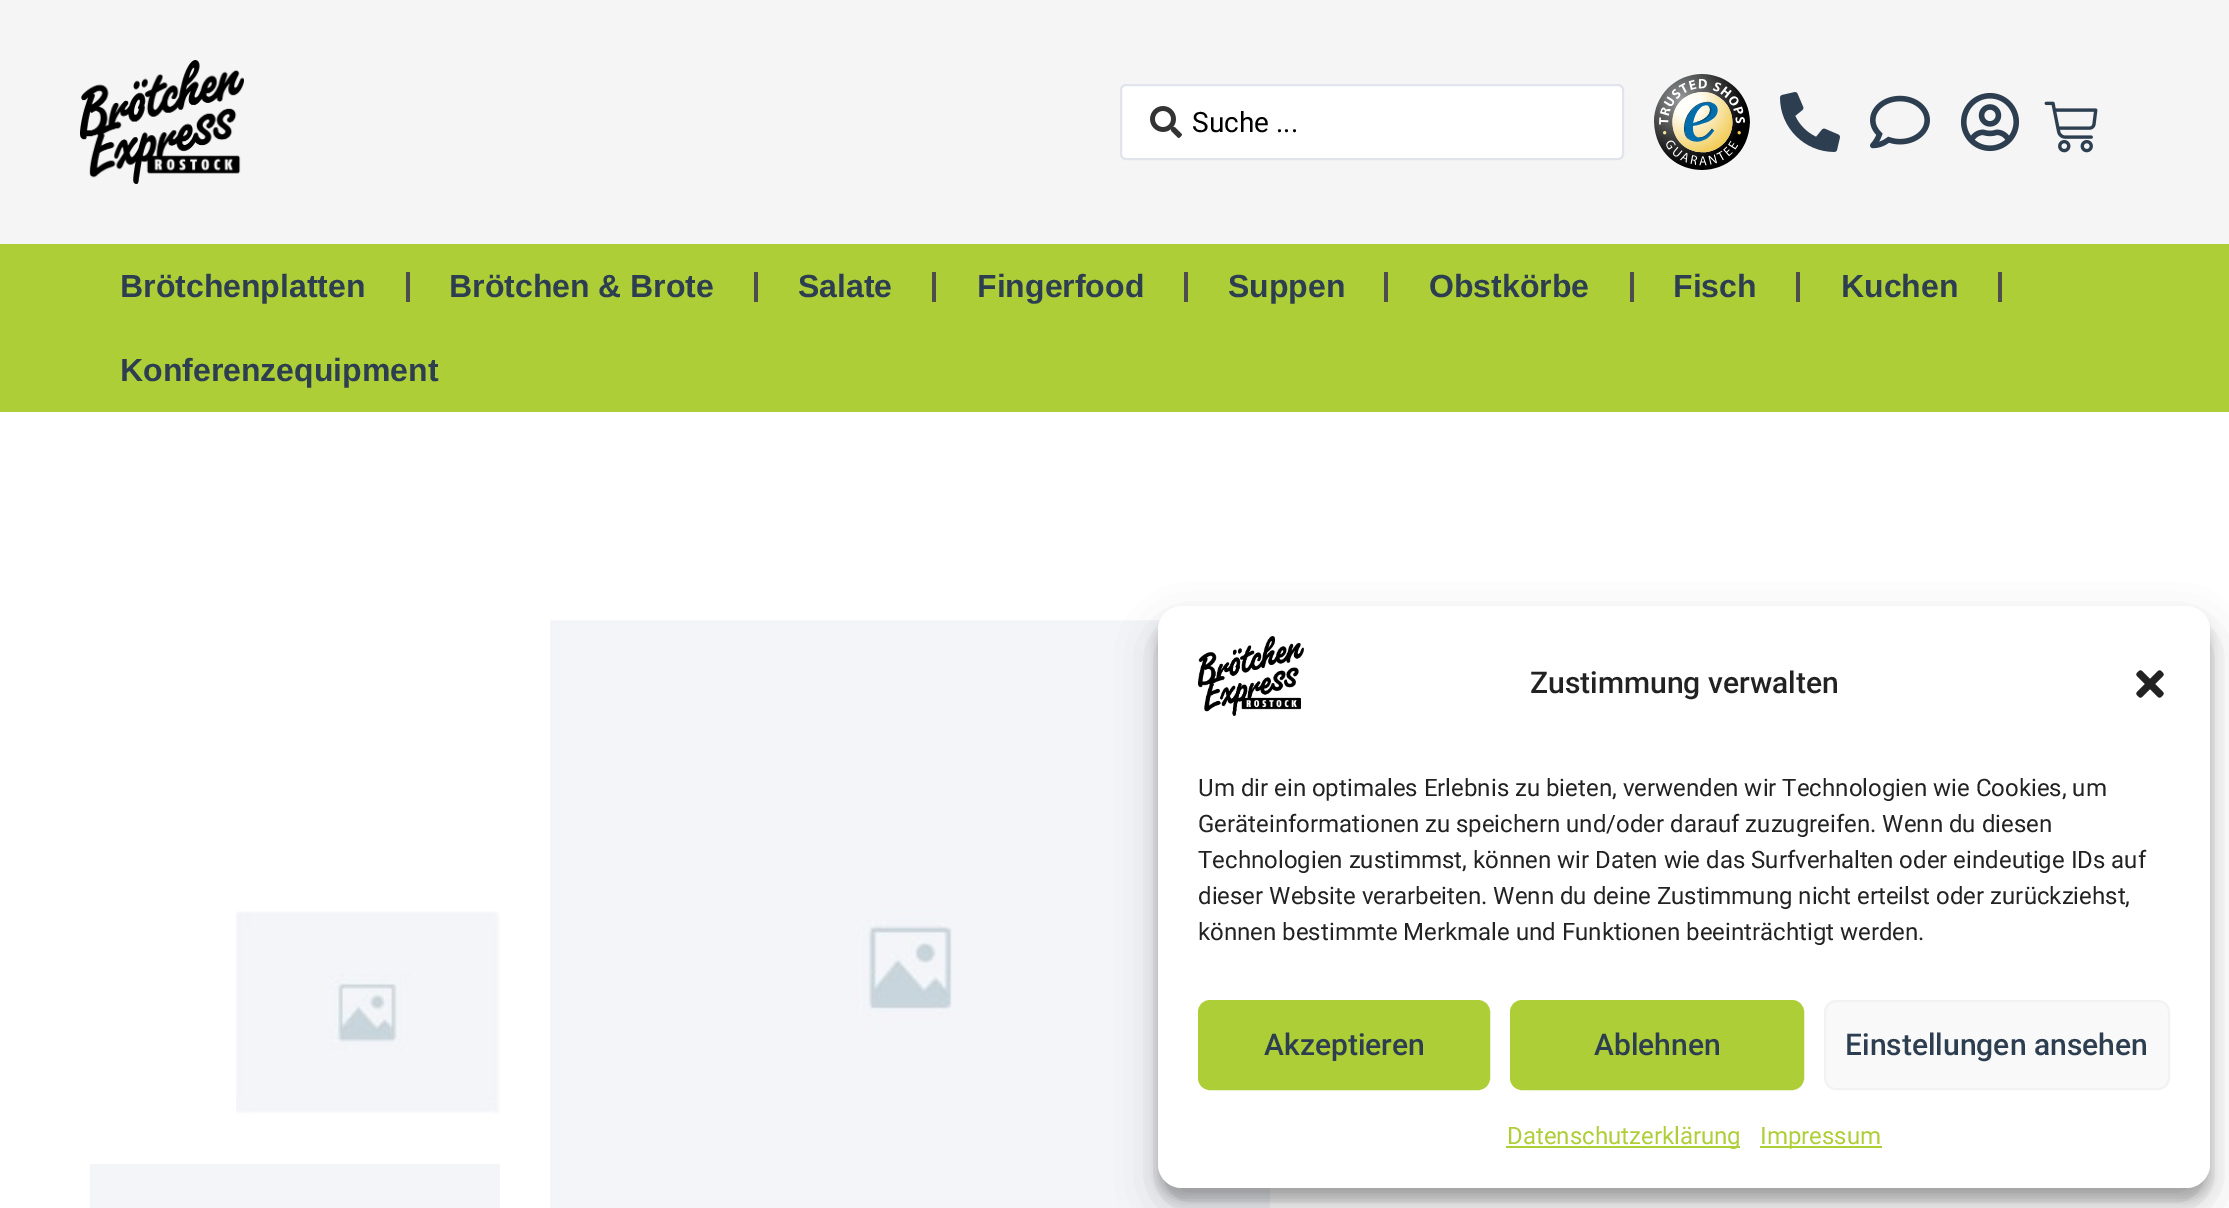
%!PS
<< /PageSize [2229 1208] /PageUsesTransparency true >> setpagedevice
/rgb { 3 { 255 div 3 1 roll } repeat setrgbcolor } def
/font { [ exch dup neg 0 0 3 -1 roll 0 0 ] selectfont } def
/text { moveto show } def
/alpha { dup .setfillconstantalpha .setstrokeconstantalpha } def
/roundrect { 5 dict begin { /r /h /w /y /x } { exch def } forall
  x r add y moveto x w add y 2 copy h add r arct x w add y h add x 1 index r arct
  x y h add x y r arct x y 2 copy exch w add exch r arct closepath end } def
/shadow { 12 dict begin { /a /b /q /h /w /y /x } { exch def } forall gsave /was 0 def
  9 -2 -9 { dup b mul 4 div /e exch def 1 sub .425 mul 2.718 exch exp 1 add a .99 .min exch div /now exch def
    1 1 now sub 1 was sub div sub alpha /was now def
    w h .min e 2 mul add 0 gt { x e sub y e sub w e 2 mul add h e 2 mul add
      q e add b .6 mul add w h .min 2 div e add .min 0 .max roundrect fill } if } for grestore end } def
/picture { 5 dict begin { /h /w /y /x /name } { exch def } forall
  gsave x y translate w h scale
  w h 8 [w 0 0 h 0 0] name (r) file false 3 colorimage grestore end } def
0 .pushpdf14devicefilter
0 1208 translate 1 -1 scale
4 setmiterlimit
255 255 255 rgb
0 0 2229 1208 rectfill
245 245 245 rgb
0 0 2229 244 rectfill
(img_01.rgb) 80 60 164 124 picture
255 255 255 rgb
1121 85 502 74 5 roundrect gsave fill grestore
225 229 235 rgb
2 setlinewidth
stroke
(img_02.rgb) 1150 106 32 32 picture
(img_03.rgb) 1654 74 96 96 picture
(img_04.rgb) 1780 92 60 60 picture
(img_05.rgb) 1870 95 60 54 picture
(img_06.rgb) 1960 92 60 60 picture
(img_07.rgb) 2044 101 54 52 picture
174 206 55 rgb
0 244 2229 168 rectfill
77 77 77 rgb
406 272 4 30 rectfill
754 272 4 30 rectfill
932 272 4 30 rectfill
1184 272 4 30 rectfill
1384 272 4 30 rectfill
1630 272 4 30 rectfill
1796 272 4 30 rectfill
1998 272 4 30 rectfill
(img_08.rgb) 236 911 264 203 picture
244 245 249 rgb
90 1164 410 44 rectfill
(img_09.rgb) 550 620 720 588 picture
0 0 0 rgb
1158 618 1052 582 24 6 0.23 shadow
1158 626 1052 582 24 20 0.19 shadow
255 255 255 rgb
1158 606 1052 582 24 roundrect fill
(img_10.rgb) 1198 636 106 80 picture
(img_11.rgb) 2136 670 28 28 picture
174 206 55 rgb
1199 1001 290 88 11 roundrect gsave fill grestore
stroke
1511 1001 292 88 11 roundrect gsave fill grestore
stroke
249 249 249 rgb
1825 1001 344 88 11 roundrect gsave fill grestore
242 242 242 rgb
stroke
174 206 55 rgb
1506 1146 234 2 rectfill
1760 1146 122 2 rectfill
/Roboto-Regular 28 font
0 0 0 rgb
(Suche ...) 1192 132 text
/LiberationSans-Bold 32 font
44 62 80 rgb
(Brötchenplatten) 120 297 text
(Brötchen & Brote) 449 297 text
(Salate) 798 297 text
(Fingerfood) 977 297 text
(Suppen) 1228 297 text
(Obstkörbe) 1429 297 text
(Fisch) 1673 297 text
(Kuchen) 1841 297 text
(Konferenzequipment) 120 381 text
/Roboto-Medium 30 font
34 34 34 rgb
(Zustimmung verwalten) 1530 693 text
/Roboto-Regular 24 font
(Um dir ein optimales Erlebnis zu bieten, verwenden wir Technologien wie Cookies, um) 1198 796 text
(Geräteinformationen zu speichern und/oder darauf zuzugreifen. Wenn du diesen) 1198 832 text
(Technologien zustimmst, können wir Daten wie das Surfverhalten oder eindeutige IDs auf) 1198 868 text
(dieser Website verarbeiten. Wenn du deine Zustimmung nicht erteilst oder zurückziehst,) 1198 904 text
(können bestimmte Merkmale und Funktionen beeinträchtigt werden.) 1198 940 text
/Roboto-Medium 30 font
44 62 80 rgb
(Akzeptieren) 1264 1055 text
(Ablehnen) 1594 1055 text
(Einstellungen ansehen) 1845 1055 text
/Roboto-Regular 24 font
174 206 55 rgb
(Datenschutzerklärung) 1507 1144 text
(Impressum) 1760 1144 text
.poppdf14devicefilter showpage
